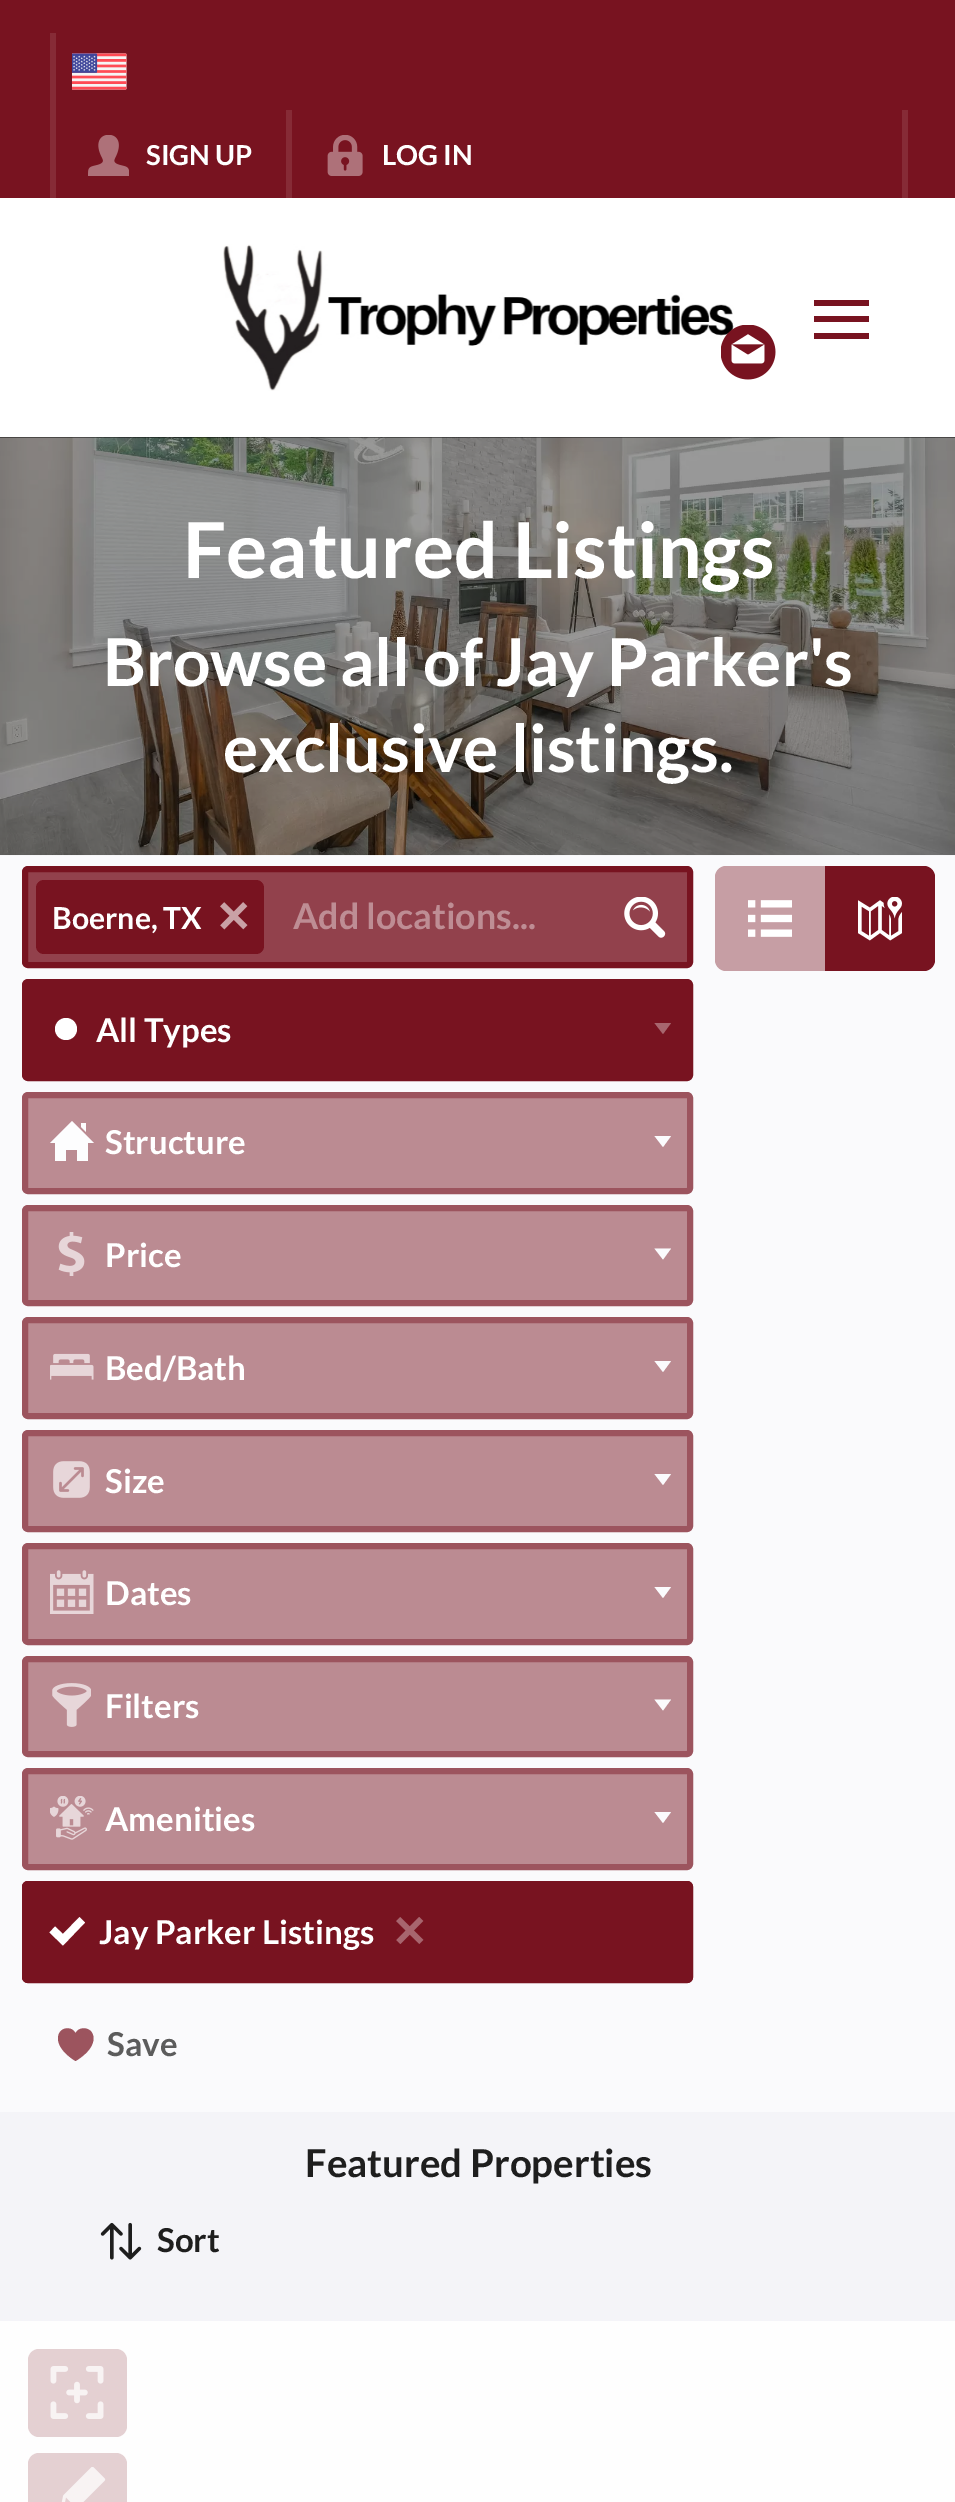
%!PS
<< /PageSize [955 2502] /PageUsesTransparency true >> setpagedevice
/rgb { 3 { 255 div 3 1 roll } repeat setrgbcolor } def
/font { [ exch dup neg 0 0 3 -1 roll 0 0 ] selectfont } def
/text { moveto show } def
/alpha { dup .setfillconstantalpha .setstrokeconstantalpha } def
/circle { newpath 0 360 arc closepath } def
/roundrect { 5 dict begin { /r /h /w /y /x } { exch def } forall
  x r add y moveto x w add y 2 copy h add r arct x w add y h add x 1 index r arct
  x y h add x y r arct x y 2 copy exch w add exch r arct closepath end } def
/picture { 5 dict begin { /h /w /y /x /name } { exch def } forall
  gsave x y translate w h scale
  w h 8 [w 0 0 h 0 0] name (r) file false 3 colorimage grestore end } def
0 .pushpdf14devicefilter
0 2502 translate 1 -1 scale
4 setmiterlimit
250 250 252 rgb
0 0 955 2502 rectfill
254 254 254 rgb
0 2321 955 181 rectfill
120 19 32 rgb
0 0 955 198 rectfill
134 43 54 rgb
50 33 6 165 rectfill
(img_01.rgb) 72 53 55 37 picture
902 110 6 88 rectfill
(img_02.rgb) 88 135 41 41 picture
286 110 6 88 rectfill
(img_03.rgb) 327 135 36 41 picture
255 255 255 rgb
0 198 955 239 rectfill
(img_04.rgb) 223 244 511 147 picture
120 19 32 rgb
814 300 55 6 rectfill
814 316 55 6 rectfill
814 333 55 6 rectfill
(img_05.rgb) 721 325 55 55 picture
0 0 0 rgb
0 437 955 418 rectfill
(img_06.rgb) 0 437 955 419 picture
146 65 76 rgb
25 869 665 96 3 roundrect gsave fill grestore
120 19 32 rgb
6 setlinewidth
stroke
36 880 228 74 8 roundrect fill
(img_07.rgb) 220 902 28 28 picture
(img_08.rgb) 624 897 42 41 picture
25 982 665 96 3 roundrect gsave fill grestore
stroke
255 255 255 rgb
66 1029 11 circle fill
167 102 110 rgb
654.5 1023 moveto 16.5 0 rlineto -8 11 rlineto closepath fill
187 139 146 rgb
25 1095 665 96 3 roundrect gsave fill grestore
156 84 94 rgb
stroke
253 253 254 rgb
88 1143 moveto 0 18 rlineto -11 0 rlineto 0 -11 rlineto -11 0 rlineto 0 11 rlineto -11 0 rlineto 0 -18 rlineto -5 0 rlineto 22 -22 rlineto 22 22 rlineto closepath 86 1132 moveto 0 -9 rlineto -5 0 rlineto 0 4 rlineto closepath fill
251 251 253 rgb
654.5 1136 moveto 16.5 0 rlineto -8 11 rlineto closepath fill
187 139 146 rgb
25 1208 665 95 3 roundrect gsave fill grestore
156 84 94 rgb
stroke
(img_09.rgb) 58 1232 27 44 picture
251 251 253 rgb
654.5 1248.5 moveto 16.5 0 rlineto -8 11 rlineto closepath fill
187 139 146 rgb
25 1320 665 96 3 roundrect gsave fill grestore
156 84 94 rgb
stroke
(img_10.rgb) 50 1353 44 27 picture
251 251 253 rgb
654.5 1361 moveto 16.5 0 rlineto -8 11 rlineto closepath fill
187 139 146 rgb
25 1433 665 96 3 roundrect gsave fill grestore
156 84 94 rgb
stroke
(img_11.rgb) 53 1461 37 37 picture
251 251 253 rgb
654.5 1474 moveto 16.5 0 rlineto -8 11 rlineto closepath fill
187 139 146 rgb
25 1546 665 96 3 roundrect gsave fill grestore
156 84 94 rgb
stroke
(img_12.rgb) 50 1570 44 44 picture
251 251 253 rgb
654.5 1587 moveto 16.5 0 rlineto -8 11 rlineto closepath fill
187 139 146 rgb
25 1659 665 95 3 roundrect gsave fill grestore
156 84 94 rgb
stroke
(img_13.rgb) 52 1683 39 44 picture
251 251 253 rgb
654.5 1699.5 moveto 16.5 0 rlineto -8 11 rlineto closepath fill
187 139 146 rgb
25 1771 665 96 3 roundrect gsave fill grestore
156 84 94 rgb
stroke
(img_14.rgb) 50 1796 44 44 picture
251 251 253 rgb
654.5 1812 moveto 16.5 0 rlineto -8 11 rlineto closepath fill
120 19 32 rgb
22 1881 671 102 6 roundrect fill
0.67 alpha
25 1884 665 96 3 roundrect fill
1 alpha
25 1884 665 96 3 roundrect stroke
255 255 255 rgb
79.5 1917 moveto -16.5 17 rlineto -8 -7.5 rlineto -5.5 6 rlineto 13.5 13 rlineto 22 -23 rlineto closepath fill
(img_15.rgb) 396 1917 28 27 picture
156 84 94 rgb
75.5 2033.5 moveto -3 -8 -17.5 -7 -17.5 5 rcurveto 0 6 4.5 14.5 17.5 22.5 rcurveto 13.5 -8 18 -16.5 18 -22.5 rcurveto 0 -12 -15 -13 -18 -5 rcurveto closepath fill
198 158 164 rgb
726 866 moveto 99 0 rlineto 0 105 rlineto -99 0 rlineto -6 0 -11 -5 -11 -11 rcurveto 0 -83 rlineto 0 -6 5 -11 11 -11 rcurveto closepath fill
(img_16.rgb) 748 900 44 37 picture
120 19 32 rgb
825 866 moveto 99 0 rlineto 6 0 11 5 11 11 rcurveto 0 83 rlineto 0 6 -5 11 -11 11 rcurveto -99 0 rlineto closepath fill
(img_17.rgb) 858 897 44 44 picture
244 244 248 rgb
0 2112 955 209 rectfill
(img_18.rgb) 100 2222 42 38 picture
228 208 210 rgb
28 2349 99 88 11 roundrect fill
(img_19.rgb) 50 2366 54 53 picture
28 2453 99 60 11 roundrect fill
(img_20.rgb) 61 2467 45 35 picture
/Lato-Bold 27.5 font
255 255 255 rgb
(SIGN UP) 146 165 text
(LOG IN) 382 165 text
/Lato-Bold 77 font
(Featured Listings) 183 578 text
/Lato-Bold 66 font
(Browse all of Jay Parker's) 103 686 text
(exclusive listings.) 223 772 text
/Lato-Bold 30.25 font
(Boerne, TX) 52 929 text
/Lato-Bold 35.75 font
190 141 148 rgb
(Add locations...) 293 929 text
/Lato-Bold 33 font
255 255 255 rgb
(All Types) 96 1042 text
(Structure) 105 1154 text
(Price) 105 1267 text
(Bed/Bath) 105 1380 text
(Size) 105 1493 text
(Dates) 105 1605 text
(Filters) 105 1718 text
(Amenities) 105 1831 text
(Jay Parker Listings) 99 1944 text
92 92 92 rgb
(Save) 107 2056 text
/Lato-Bold 38.5 font
30 30 30 rgb
(Featured Properties) 305 2177 text
/Lato-Bold 33 font
(Sort) 157 2252 text
.poppdf14devicefilter showpage
